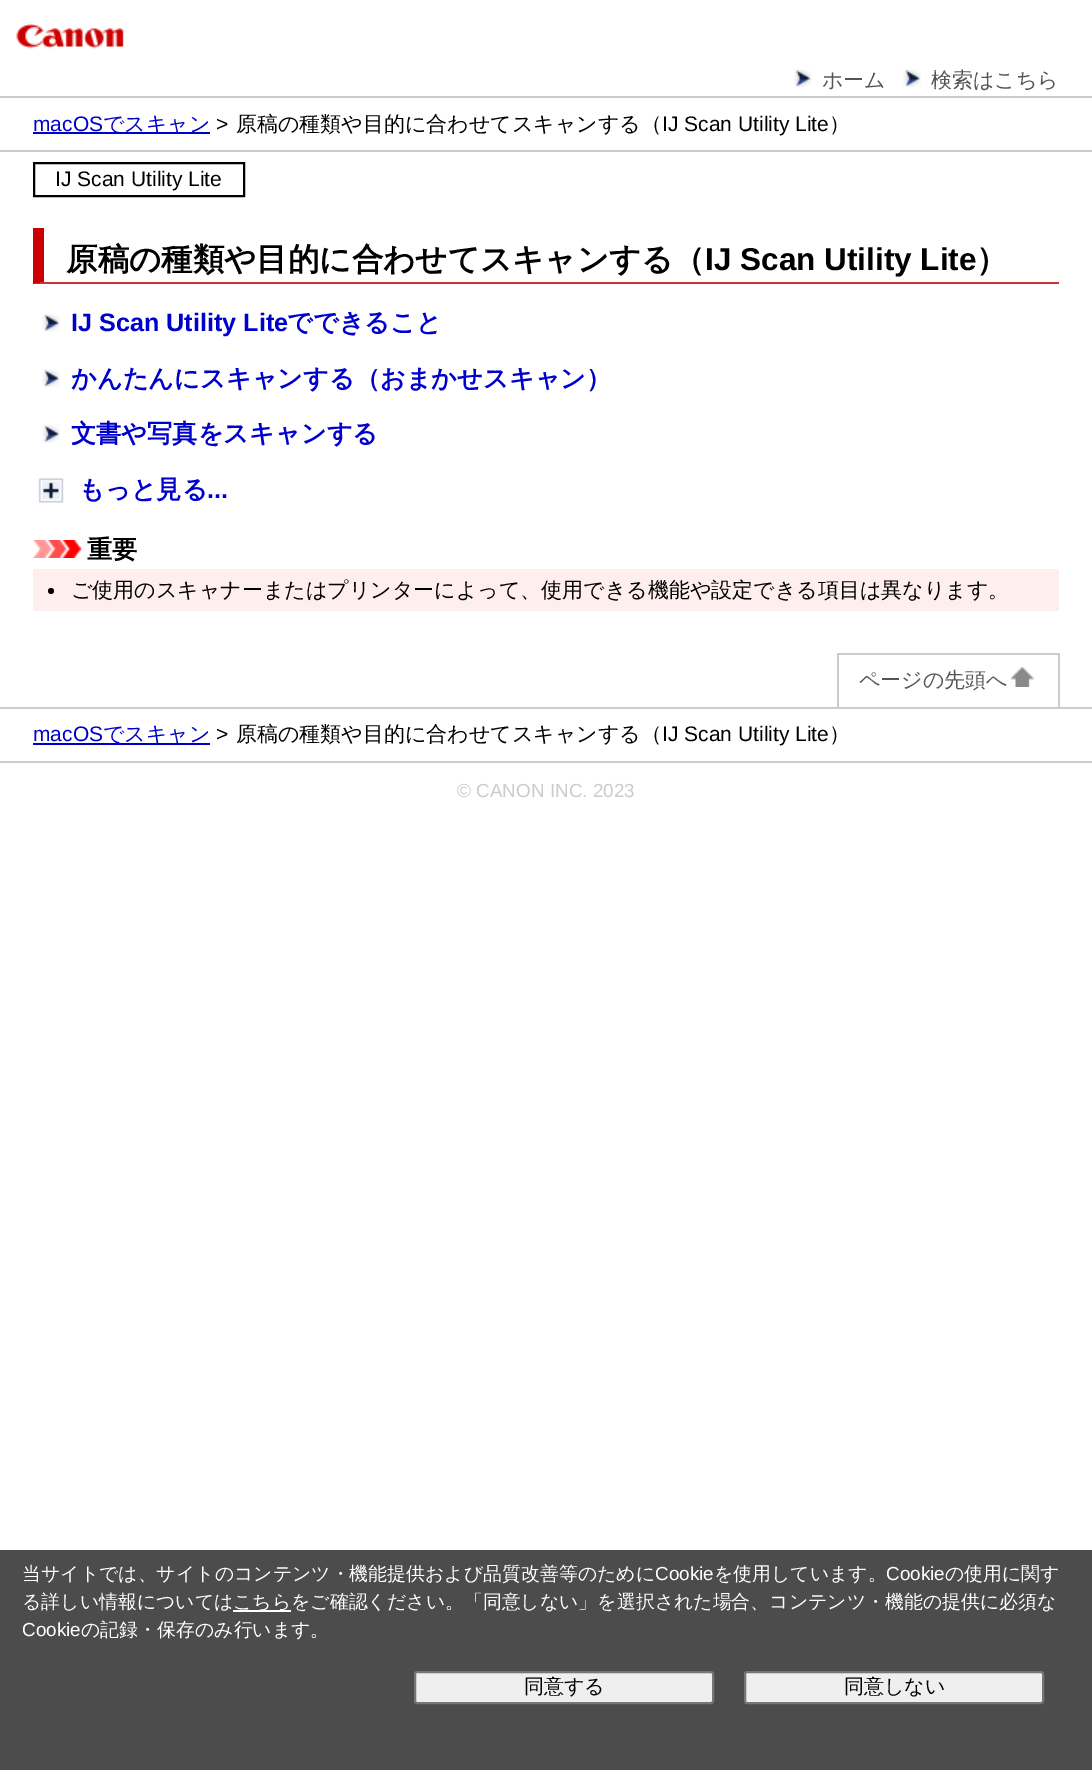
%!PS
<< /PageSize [1092 1770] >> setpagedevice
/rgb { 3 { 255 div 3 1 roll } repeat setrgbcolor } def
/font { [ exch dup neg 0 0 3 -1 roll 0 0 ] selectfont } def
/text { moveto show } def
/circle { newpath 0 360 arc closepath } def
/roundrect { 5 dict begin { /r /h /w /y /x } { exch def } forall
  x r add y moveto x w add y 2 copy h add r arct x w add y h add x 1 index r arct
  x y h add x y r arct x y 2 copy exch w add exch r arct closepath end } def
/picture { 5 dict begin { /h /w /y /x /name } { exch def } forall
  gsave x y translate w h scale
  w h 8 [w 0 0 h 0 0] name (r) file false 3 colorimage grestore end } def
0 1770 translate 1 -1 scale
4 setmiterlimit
255 255 255 rgb
0 0 1092 1770 rectfill
(img_01.rgb) 16 23 108 26 picture
204 204 204 rgb
0 150 1092 2 rectfill
(img_02.rgb) 794 69 18 18 picture
(img_03.rgb) 903 69 18 18 picture
0 96 1092 2 rectfill
0 0 204 rgb
33 132 177 2 rectfill
0 0 0 rgb
2 setlinewidth
34 163 210 33 rectstroke
204 51 51 rgb
1059 284 moveto -1026 0 rlineto 11 -2 rlineto 1015 0 rlineto closepath fill
204 0 0 rgb
33 284 moveto 0 -56 rlineto 11 0 rlineto 0 54 rlineto closepath fill
(img_04.rgb) 42 313 18 19 picture
(img_03.rgb) 42 369 18 18 picture
(img_04.rgb) 42 424 18 19 picture
(img_05.rgb) 38 478 26 25 picture
(img_06.rgb) 33 540 49 18 picture
255 238 238 rgb
33 569 1026 42 rectfill
0 0 0 rgb
51 591 3 circle fill
204 204 204 rgb
0 761 1092 2 rectfill
837 653 222 2 rectfill
1058 653 2 54 rectfill
837 653 2 54 rectfill
(img_07.rgb) 1010 667 25 20 picture
0 707 1092 2 rectfill
0 0 204 rgb
33 743 177 2 rectfill
76 76 76 rgb
0 1550 1092 220 rectfill
255 255 255 rgb
233 1610 58 2 rectfill
239 239 239 rgb
415 1672 298 31 2 roundrect gsave fill grestore
118 118 118 rgb
stroke
239 239 239 rgb
745 1672 298 31 2 roundrect gsave fill grestore
118 118 118 rgb
stroke
/WenQuanYiZenHei-Medium 21 font
85 85 85 rgb
(ホーム) 822 87 text
(検索はこちら) 931 87 text
/LiberationSans-Regular 21 font
0 0 204 rgb
(macOS) 33 131 text
/WenQuanYiZenHei-Medium 21 font
(でスキャン) 103 131 text
/LiberationSans-Regular 21 font
0 0 0 rgb
(>) 216 131 text
/WenQuanYiZenHei-Medium 21 font
(原稿の種類や目的に合わせてスキャンする（) 236 131 text
/LiberationSans-Regular 21 font
(IJ Scan Utility Lite) 662 131 text
/WenQuanYiZenHei-Medium 21 font
(）) 829 131 text
/LiberationSans-Regular 21 font
(IJ Scan Utility Lite) 55 186 text
/WenQuanYiZenHei-Bold 31.5 font
(原稿の種類や目的に合わせてスキャンする（) 66 270 text
/LiberationSans-Bold 31.5 font
(IJ Scan Utility Lite) 705 270 text
/WenQuanYiZenHei-Bold 31.5 font
(）) 976 270 text
/LiberationSans-Bold 25.2 font
0 0 204 rgb
(IJ Scan Utility Lite) 71 331 text
/WenQuanYiZenHei-Bold 25.2 font
(でできること) 287 331 text
(かんたんにスキャンする（おまかせスキャン）) 71 387 text
(文書や写真をスキャンする) 71 442 text
(もっと見る) 79 498 text
/LiberationSans-Bold 25.2 font
(...) 207 498 text
/WenQuanYiZenHei-Bold 25.2 font
0 0 0 rgb
(重要) 87 558 text
/WenQuanYiZenHei-Medium 21 font
(ご使用のスキャナーまたはプリンターによって、使用できる機能や設定できる項目は異なります。) 71 597 text
85 85 85 rgb
(ページの先頭へ) 859 687 text
/LiberationSans-Regular 21 font
0 0 204 rgb
(macOS) 33 741 text
/WenQuanYiZenHei-Medium 21 font
(でスキャン) 103 741 text
/LiberationSans-Regular 21 font
0 0 0 rgb
(>) 216 741 text
/WenQuanYiZenHei-Medium 21 font
(原稿の種類や目的に合わせてスキャンする（) 236 741 text
/LiberationSans-Regular 21 font
(IJ Scan Utility Lite) 662 741 text
/WenQuanYiZenHei-Medium 21 font
(）) 829 741 text
/LiberationSans-Regular 18.9 font
204 204 204 rgb
(© CANON INC. 2023) 457 797 text
/WenQuanYiZenHei-Medium 18.9 font
255 255 255 rgb
(当サイトでは、サイトのコンテンツ・機能提供および品質改善等のために) 22 1580 text
/LiberationSans-Regular 18.9 font
(Cookie) 655 1580 text
/WenQuanYiZenHei-Medium 18.9 font
(を使用しています。) 714 1580 text
/LiberationSans-Regular 18.9 font
(Cookie) 886 1580 text
/WenQuanYiZenHei-Medium 18.9 font
(の使用に関す) 945 1580 text
(る詳しい情報については) 22 1608 text
(こちらをご確認ください。「同意しない」を選択された場合、コンテンツ・機能の提供に必須な) 233 1608 text
/LiberationSans-Regular 18.9 font
(Cookie) 22 1636 text
/WenQuanYiZenHei-Medium 18.9 font
(の記録・保存のみ行います。) 81 1636 text
/WenQuanYiZenHei-Medium 20 font
0 0 0 rgb
(同意する) 524 1693 text
(同意しない) 844 1693 text
showpage
